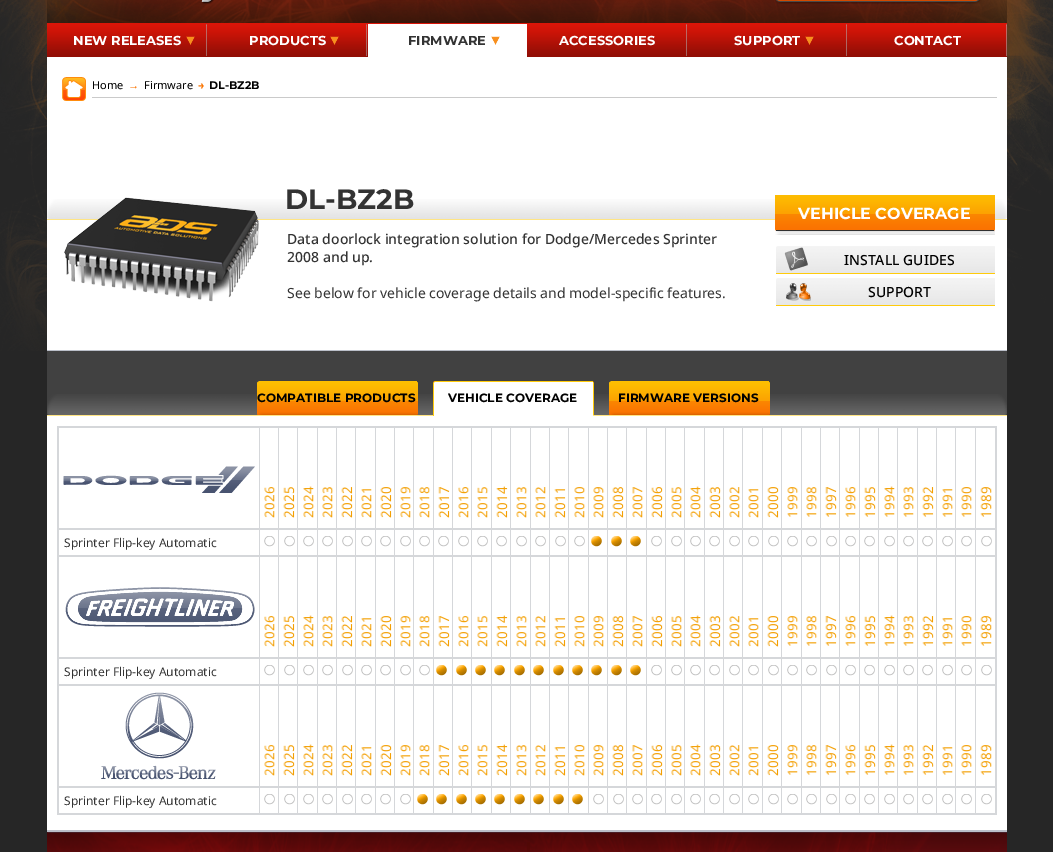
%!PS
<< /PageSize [1053 852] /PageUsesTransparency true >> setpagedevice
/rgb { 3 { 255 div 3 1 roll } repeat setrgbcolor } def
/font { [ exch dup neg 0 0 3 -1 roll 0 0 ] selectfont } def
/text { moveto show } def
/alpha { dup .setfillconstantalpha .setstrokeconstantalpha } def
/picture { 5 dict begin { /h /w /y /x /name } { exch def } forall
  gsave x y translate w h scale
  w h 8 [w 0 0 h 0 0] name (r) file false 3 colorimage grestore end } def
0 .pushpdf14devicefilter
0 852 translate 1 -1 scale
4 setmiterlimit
38 38 38 rgb
0 0 1053 852 rectfill
(img_01.rgb) 0 0 1053 351 picture
(img_02.rgb) 47 0 960 57 picture
(img_03.rgb) 201 0 13 4 picture
(img_04.rgb) 775 0 207 4 picture
(img_05.rgb) 206 24 1 32 picture
(img_06.rgb) 186 36 9 9 picture
(img_05.rgb) 366 24 1 32 picture
(img_06.rgb) 330 36 9 9 picture
255 255 255 rgb
368 24 159 33 rectfill
(img_07.rgb) 491 36 9 9 picture
(img_05.rgb) 686 24 1 32 picture
(img_05.rgb) 846 24 1 32 picture
(img_06.rgb) 805 36 9 9 picture
(img_05.rgb) 1006 24 1 32 picture
47 57 960 773 rectfill
(img_08.rgb) 62 77 24 24 picture
202 202 202 rgb
92 97 905 1 rectfill
(img_09.rgb) 47 199 960 20 picture
255 229 132 rgb
47 219 960 1 rectfill
187 191 201 rgb
47 350 960 1 rectfill
(img_10.rgb) 64 197 195 105 picture
(img_11.rgb) 775 195 220 40 picture
(img_12.rgb) 776 246 219 28 picture
(img_13.rgb) 784 247 24 24 picture
(img_12.rgb) 776 278 219 28 picture
(img_14.rgb) 786 283 25 18 picture
65 65 65 rgb
47 351 960 64 rectfill
(img_15.rgb) 47 394 960 21 picture
(img_16.rgb) 257 381 160 34 picture
(img_17.rgb) 417 381 1 34 picture
255 229 132 rgb
47 415 960 1 rectfill
(img_18.rgb) 433 381 160 35 picture
(img_19.rgb) 593 381 1 34 picture
(img_16.rgb) 609 381 160 34 picture
(img_17.rgb) 769 381 1 34 picture
187 191 201 rgb
47 830 960 2 rectfill
213 215 218 rgb
975 427 1 388 rectfill
259 427 1 388 rectfill
278 427 1 388 rectfill
297 427 1 388 rectfill
317 427 1 388 rectfill
336 427 1 388 rectfill
355 427 1 388 rectfill
375 427 1 388 rectfill
394 427 1 388 rectfill
413 427 1 388 rectfill
433 427 1 388 rectfill
452 427 1 388 rectfill
471 427 1 388 rectfill
491 427 1 388 rectfill
510 427 1 388 rectfill
530 427 1 388 rectfill
549 427 1 388 rectfill
568 427 1 388 rectfill
588 427 1 388 rectfill
607 427 1 388 rectfill
626 427 1 388 rectfill
646 427 1 388 rectfill
665 427 1 388 rectfill
684 427 1 388 rectfill
704 427 1 388 rectfill
723 427 1 388 rectfill
742 427 1 388 rectfill
762 427 1 388 rectfill
781 427 1 388 rectfill
801 427 1 388 rectfill
820 427 1 388 rectfill
839 427 1 388 rectfill
859 427 1 388 rectfill
878 427 1 388 rectfill
897 427 1 388 rectfill
917 427 1 388 rectfill
936 427 1 388 rectfill
955 427 1 388 rectfill
57 426 940 2 rectfill
995 426 2 389 rectfill
57 813 940 2 rectfill
57 426 2 389 rectfill
(img_20.rgb) 63 466 192 27 picture
(img_21.rgb) 264 487 12 31 picture
(img_22.rgb) 283 487 12 31 picture
(img_23.rgb) 303 486 12 32 picture
(img_24.rgb) 322 487 12 31 picture
(img_25.rgb) 341 487 12 31 picture
(img_26.rgb) 361 489 12 29 picture
(img_27.rgb) 380 487 12 31 picture
(img_28.rgb) 400 487 12 31 picture
(img_29.rgb) 419 487 12 31 picture
(img_30.rgb) 438 487 12 31 picture
(img_31.rgb) 458 487 12 31 picture
(img_32.rgb) 477 487 12 31 picture
(img_33.rgb) 496 486 12 32 picture
(img_34.rgb) 516 487 12 31 picture
(img_35.rgb) 535 487 12 31 picture
(img_36.rgb) 554 489 12 29 picture
(img_37.rgb) 574 487 12 31 picture
(img_38.rgb) 593 487 12 31 picture
(img_39.rgb) 612 487 12 31 picture
(img_40.rgb) 632 487 12 31 picture
(img_41.rgb) 651 487 12 31 picture
(img_42.rgb) 671 487 12 31 picture
(img_43.rgb) 690 486 12 32 picture
(img_44.rgb) 709 487 12 31 picture
(img_45.rgb) 729 487 12 31 picture
(img_46.rgb) 748 489 12 29 picture
(img_47.rgb) 767 487 12 31 picture
(img_48.rgb) 787 487 12 30 picture
(img_49.rgb) 806 487 12 30 picture
(img_50.rgb) 825 487 12 30 picture
(img_51.rgb) 845 487 12 30 picture
(img_52.rgb) 864 487 12 30 picture
(img_53.rgb) 884 486 12 31 picture
(img_54.rgb) 903 487 12 30 picture
(img_55.rgb) 922 487 12 30 picture
(img_56.rgb) 942 489 12 28 picture
(img_57.rgb) 961 487 12 30 picture
(img_58.rgb) 980 487 12 30 picture
57 528 940 2 rectfill
(img_59.rgb) 981 536 11 11 picture
(img_59.rgb) 264 536 11 11 picture
(img_59.rgb) 284 536 11 11 picture
(img_59.rgb) 303 536 11 11 picture
(img_59.rgb) 322 536 11 11 picture
(img_59.rgb) 342 536 11 11 picture
(img_59.rgb) 361 536 11 11 picture
(img_59.rgb) 380 536 11 11 picture
(img_59.rgb) 400 536 11 11 picture
(img_59.rgb) 419 536 11 11 picture
(img_59.rgb) 438 536 11 11 picture
(img_59.rgb) 458 536 11 11 picture
(img_59.rgb) 477 536 11 11 picture
(img_59.rgb) 496 536 11 11 picture
(img_59.rgb) 516 536 11 11 picture
(img_59.rgb) 535 536 11 11 picture
(img_59.rgb) 555 536 11 11 picture
(img_59.rgb) 574 536 11 11 picture
(img_60.rgb) 591 536 11 11 picture
(img_60.rgb) 611 536 11 11 picture
(img_60.rgb) 630 536 11 11 picture
(img_59.rgb) 651 536 11 11 picture
(img_59.rgb) 671 536 11 11 picture
(img_59.rgb) 690 536 11 11 picture
(img_59.rgb) 709 536 11 11 picture
(img_59.rgb) 729 536 11 11 picture
(img_59.rgb) 748 536 11 11 picture
(img_59.rgb) 768 536 11 11 picture
(img_59.rgb) 787 536 11 11 picture
(img_59.rgb) 806 536 11 11 picture
(img_59.rgb) 826 536 11 11 picture
(img_59.rgb) 845 536 11 11 picture
(img_59.rgb) 864 536 11 11 picture
(img_59.rgb) 884 536 11 11 picture
(img_59.rgb) 903 536 11 11 picture
(img_59.rgb) 922 536 11 11 picture
(img_59.rgb) 942 536 11 11 picture
(img_59.rgb) 961 536 11 11 picture
(img_58.rgb) 980 616 12 30 picture
57 555 940 2 rectfill
(img_61.rgb) 65 587 190 40 picture
(img_21.rgb) 264 616 12 31 picture
(img_22.rgb) 283 616 12 31 picture
(img_23.rgb) 303 615 12 32 picture
(img_24.rgb) 322 616 12 31 picture
(img_25.rgb) 341 616 12 31 picture
(img_26.rgb) 361 618 12 29 picture
(img_27.rgb) 380 616 12 31 picture
(img_28.rgb) 400 616 12 31 picture
(img_29.rgb) 419 616 12 31 picture
(img_30.rgb) 438 616 12 31 picture
(img_31.rgb) 458 616 12 31 picture
(img_32.rgb) 477 616 12 31 picture
(img_33.rgb) 496 615 12 32 picture
(img_34.rgb) 516 616 12 31 picture
(img_35.rgb) 535 616 12 31 picture
(img_36.rgb) 554 618 12 29 picture
(img_37.rgb) 574 616 12 31 picture
(img_38.rgb) 593 616 12 31 picture
(img_39.rgb) 612 616 12 31 picture
(img_40.rgb) 632 616 12 31 picture
(img_41.rgb) 651 616 12 31 picture
(img_42.rgb) 671 616 12 31 picture
(img_43.rgb) 690 615 12 32 picture
(img_44.rgb) 709 616 12 31 picture
(img_45.rgb) 729 616 12 31 picture
(img_46.rgb) 748 618 12 29 picture
(img_47.rgb) 767 616 12 31 picture
(img_48.rgb) 787 616 12 30 picture
(img_49.rgb) 806 616 12 30 picture
(img_50.rgb) 825 616 12 30 picture
(img_51.rgb) 845 616 12 30 picture
(img_52.rgb) 864 616 12 30 picture
(img_53.rgb) 884 615 12 31 picture
(img_54.rgb) 903 616 12 30 picture
(img_55.rgb) 922 616 12 30 picture
(img_56.rgb) 942 618 12 28 picture
(img_57.rgb) 961 616 12 30 picture
57 657 940 2 rectfill
(img_59.rgb) 981 665 11 11 picture
(img_59.rgb) 264 665 11 11 picture
(img_59.rgb) 284 665 11 11 picture
(img_59.rgb) 303 665 11 11 picture
(img_59.rgb) 322 665 11 11 picture
(img_59.rgb) 342 665 11 11 picture
(img_59.rgb) 361 665 11 11 picture
(img_59.rgb) 380 665 11 11 picture
(img_59.rgb) 400 665 11 11 picture
(img_59.rgb) 419 665 11 11 picture
(img_60.rgb) 436 665 11 11 picture
(img_60.rgb) 456 665 11 11 picture
(img_60.rgb) 475 665 11 11 picture
(img_60.rgb) 494 665 11 11 picture
(img_60.rgb) 514 665 11 11 picture
(img_60.rgb) 533 665 11 11 picture
(img_60.rgb) 553 665 11 11 picture
(img_60.rgb) 572 665 11 11 picture
(img_60.rgb) 591 665 11 11 picture
(img_60.rgb) 611 665 11 11 picture
(img_60.rgb) 630 665 11 11 picture
(img_59.rgb) 651 665 11 11 picture
(img_59.rgb) 671 665 11 11 picture
(img_59.rgb) 690 665 11 11 picture
(img_59.rgb) 709 665 11 11 picture
(img_59.rgb) 729 665 11 11 picture
(img_59.rgb) 748 665 11 11 picture
(img_59.rgb) 768 665 11 11 picture
(img_59.rgb) 787 665 11 11 picture
(img_59.rgb) 806 665 11 11 picture
(img_59.rgb) 826 665 11 11 picture
(img_59.rgb) 845 665 11 11 picture
(img_59.rgb) 864 665 11 11 picture
(img_59.rgb) 884 665 11 11 picture
(img_59.rgb) 903 665 11 11 picture
(img_59.rgb) 922 665 11 11 picture
(img_59.rgb) 942 665 11 11 picture
(img_59.rgb) 961 665 11 11 picture
(img_58.rgb) 980 745 12 30 picture
57 684 940 2 rectfill
(img_62.rgb) 101 692 115 88 picture
(img_21.rgb) 264 745 12 31 picture
(img_22.rgb) 283 745 12 31 picture
(img_23.rgb) 303 744 12 32 picture
(img_24.rgb) 322 745 12 31 picture
(img_25.rgb) 341 745 12 31 picture
(img_26.rgb) 361 747 12 29 picture
(img_27.rgb) 380 745 12 31 picture
(img_28.rgb) 400 745 12 31 picture
(img_29.rgb) 419 745 12 31 picture
(img_30.rgb) 438 745 12 31 picture
(img_31.rgb) 458 745 12 31 picture
(img_32.rgb) 477 745 12 31 picture
(img_33.rgb) 496 744 12 32 picture
(img_34.rgb) 516 745 12 31 picture
(img_35.rgb) 535 745 12 31 picture
(img_36.rgb) 554 747 12 29 picture
(img_37.rgb) 574 745 12 31 picture
(img_38.rgb) 593 745 12 31 picture
(img_39.rgb) 612 745 12 31 picture
(img_40.rgb) 632 745 12 31 picture
(img_41.rgb) 651 745 12 31 picture
(img_42.rgb) 671 745 12 31 picture
(img_43.rgb) 690 744 12 32 picture
(img_44.rgb) 709 745 12 31 picture
(img_45.rgb) 729 745 12 31 picture
(img_46.rgb) 748 747 12 29 picture
(img_47.rgb) 767 745 12 31 picture
(img_48.rgb) 787 745 12 30 picture
(img_49.rgb) 806 745 12 30 picture
(img_50.rgb) 825 745 12 30 picture
(img_51.rgb) 845 745 12 30 picture
(img_52.rgb) 864 745 12 30 picture
(img_53.rgb) 884 744 12 31 picture
(img_54.rgb) 903 745 12 30 picture
(img_55.rgb) 922 745 12 30 picture
(img_56.rgb) 942 747 12 28 picture
(img_57.rgb) 961 745 12 30 picture
57 786 940 2 rectfill
(img_59.rgb) 981 794 11 11 picture
(img_59.rgb) 264 794 11 11 picture
(img_59.rgb) 284 794 11 11 picture
(img_59.rgb) 303 794 11 11 picture
(img_59.rgb) 322 794 11 11 picture
(img_59.rgb) 342 794 11 11 picture
(img_59.rgb) 361 794 11 11 picture
(img_59.rgb) 380 794 11 11 picture
(img_59.rgb) 400 794 11 11 picture
(img_60.rgb) 417 794 11 11 picture
(img_60.rgb) 436 794 11 11 picture
(img_60.rgb) 456 794 11 11 picture
(img_60.rgb) 475 794 11 11 picture
(img_60.rgb) 494 794 11 11 picture
(img_60.rgb) 514 794 11 11 picture
(img_60.rgb) 533 794 11 11 picture
(img_60.rgb) 553 794 11 11 picture
(img_60.rgb) 572 794 11 11 picture
(img_59.rgb) 593 794 11 11 picture
(img_59.rgb) 613 794 11 11 picture
(img_59.rgb) 632 794 11 11 picture
(img_59.rgb) 651 794 11 11 picture
(img_59.rgb) 671 794 11 11 picture
(img_59.rgb) 690 794 11 11 picture
(img_59.rgb) 709 794 11 11 picture
(img_59.rgb) 729 794 11 11 picture
(img_59.rgb) 748 794 11 11 picture
(img_59.rgb) 768 794 11 11 picture
(img_59.rgb) 787 794 11 11 picture
(img_59.rgb) 806 794 11 11 picture
(img_59.rgb) 826 794 11 11 picture
(img_59.rgb) 845 794 11 11 picture
(img_59.rgb) 864 794 11 11 picture
(img_59.rgb) 884 794 11 11 picture
(img_59.rgb) 903 794 11 11 picture
(img_59.rgb) 922 794 11 11 picture
(img_59.rgb) 942 794 11 11 picture
(img_59.rgb) 961 794 11 11 picture
(img_63.rgb) 47 832 960 20 picture
0.5 alpha
80 8 4 rgb
527 842 3 10 rectfill
/Montserrat-Bold 13 font
1 alpha
255 255 255 rgb
(NEW RELEASES) 73 45 text
(PRODUCTS) 249 45 text
51 51 51 rgb
(FIRMWARE) 408 45 text
255 255 255 rgb
(ACCESSORIES) 559 45 text
(SUPPORT) 734 45 text
(CONTACT) 894 45 text
/NotoSans-Regular 11 font
0 0 0 rgb
(Home) 92 89 text
/LiberationSans-Regular 11 font
250 116 1 rgb
(→) 128 89 text
/NotoSans-Regular 11 font
0 0 0 rgb
(Firmware) 144 89 text
/Montserrat-Bold 11 font
250 116 1 rgb
(→) 198 89 text
0 0 0 rgb
(DL-BZ2B) 209 89 text
/Montserrat-Bold 28 font
51 51 51 rgb
(DL-BZ2B) 285 209 text
/NotoSans-Medium 14 font
(Data doorlock integration solution for Dodge/Mercedes Sprinter) 287 244 text
(2008 and up.) 287 262 text
/NotoSans-Regular 14 font
(See below for vehicle coverage details and model-specific features.) 287 298 text
/Montserrat-Bold 16 font
255 255 255 rgb
(VEHICLE COVERAGE) 798 219 text
/NotoSans-Medium 14 font
0 0 0 rgb
(INSTALL GUIDES) 844 265 text
(SUPPORT) 868 297 text
/Montserrat-Bold 12 font
(COMPATIBLE PRODUCTS) 257 402 text
(VEHICLE COVERAGE) 448 402 text
(FIRMWARE VERSIONS) 618 402 text
/NotoSans-Regular 12 font
51 51 51 rgb
(Sprinter Flip-key Automatic) 64 547 text
(Sprinter Flip-key Automatic) 64 676 text
(Sprinter Flip-key Automatic) 64 805 text
.poppdf14devicefilter showpage
